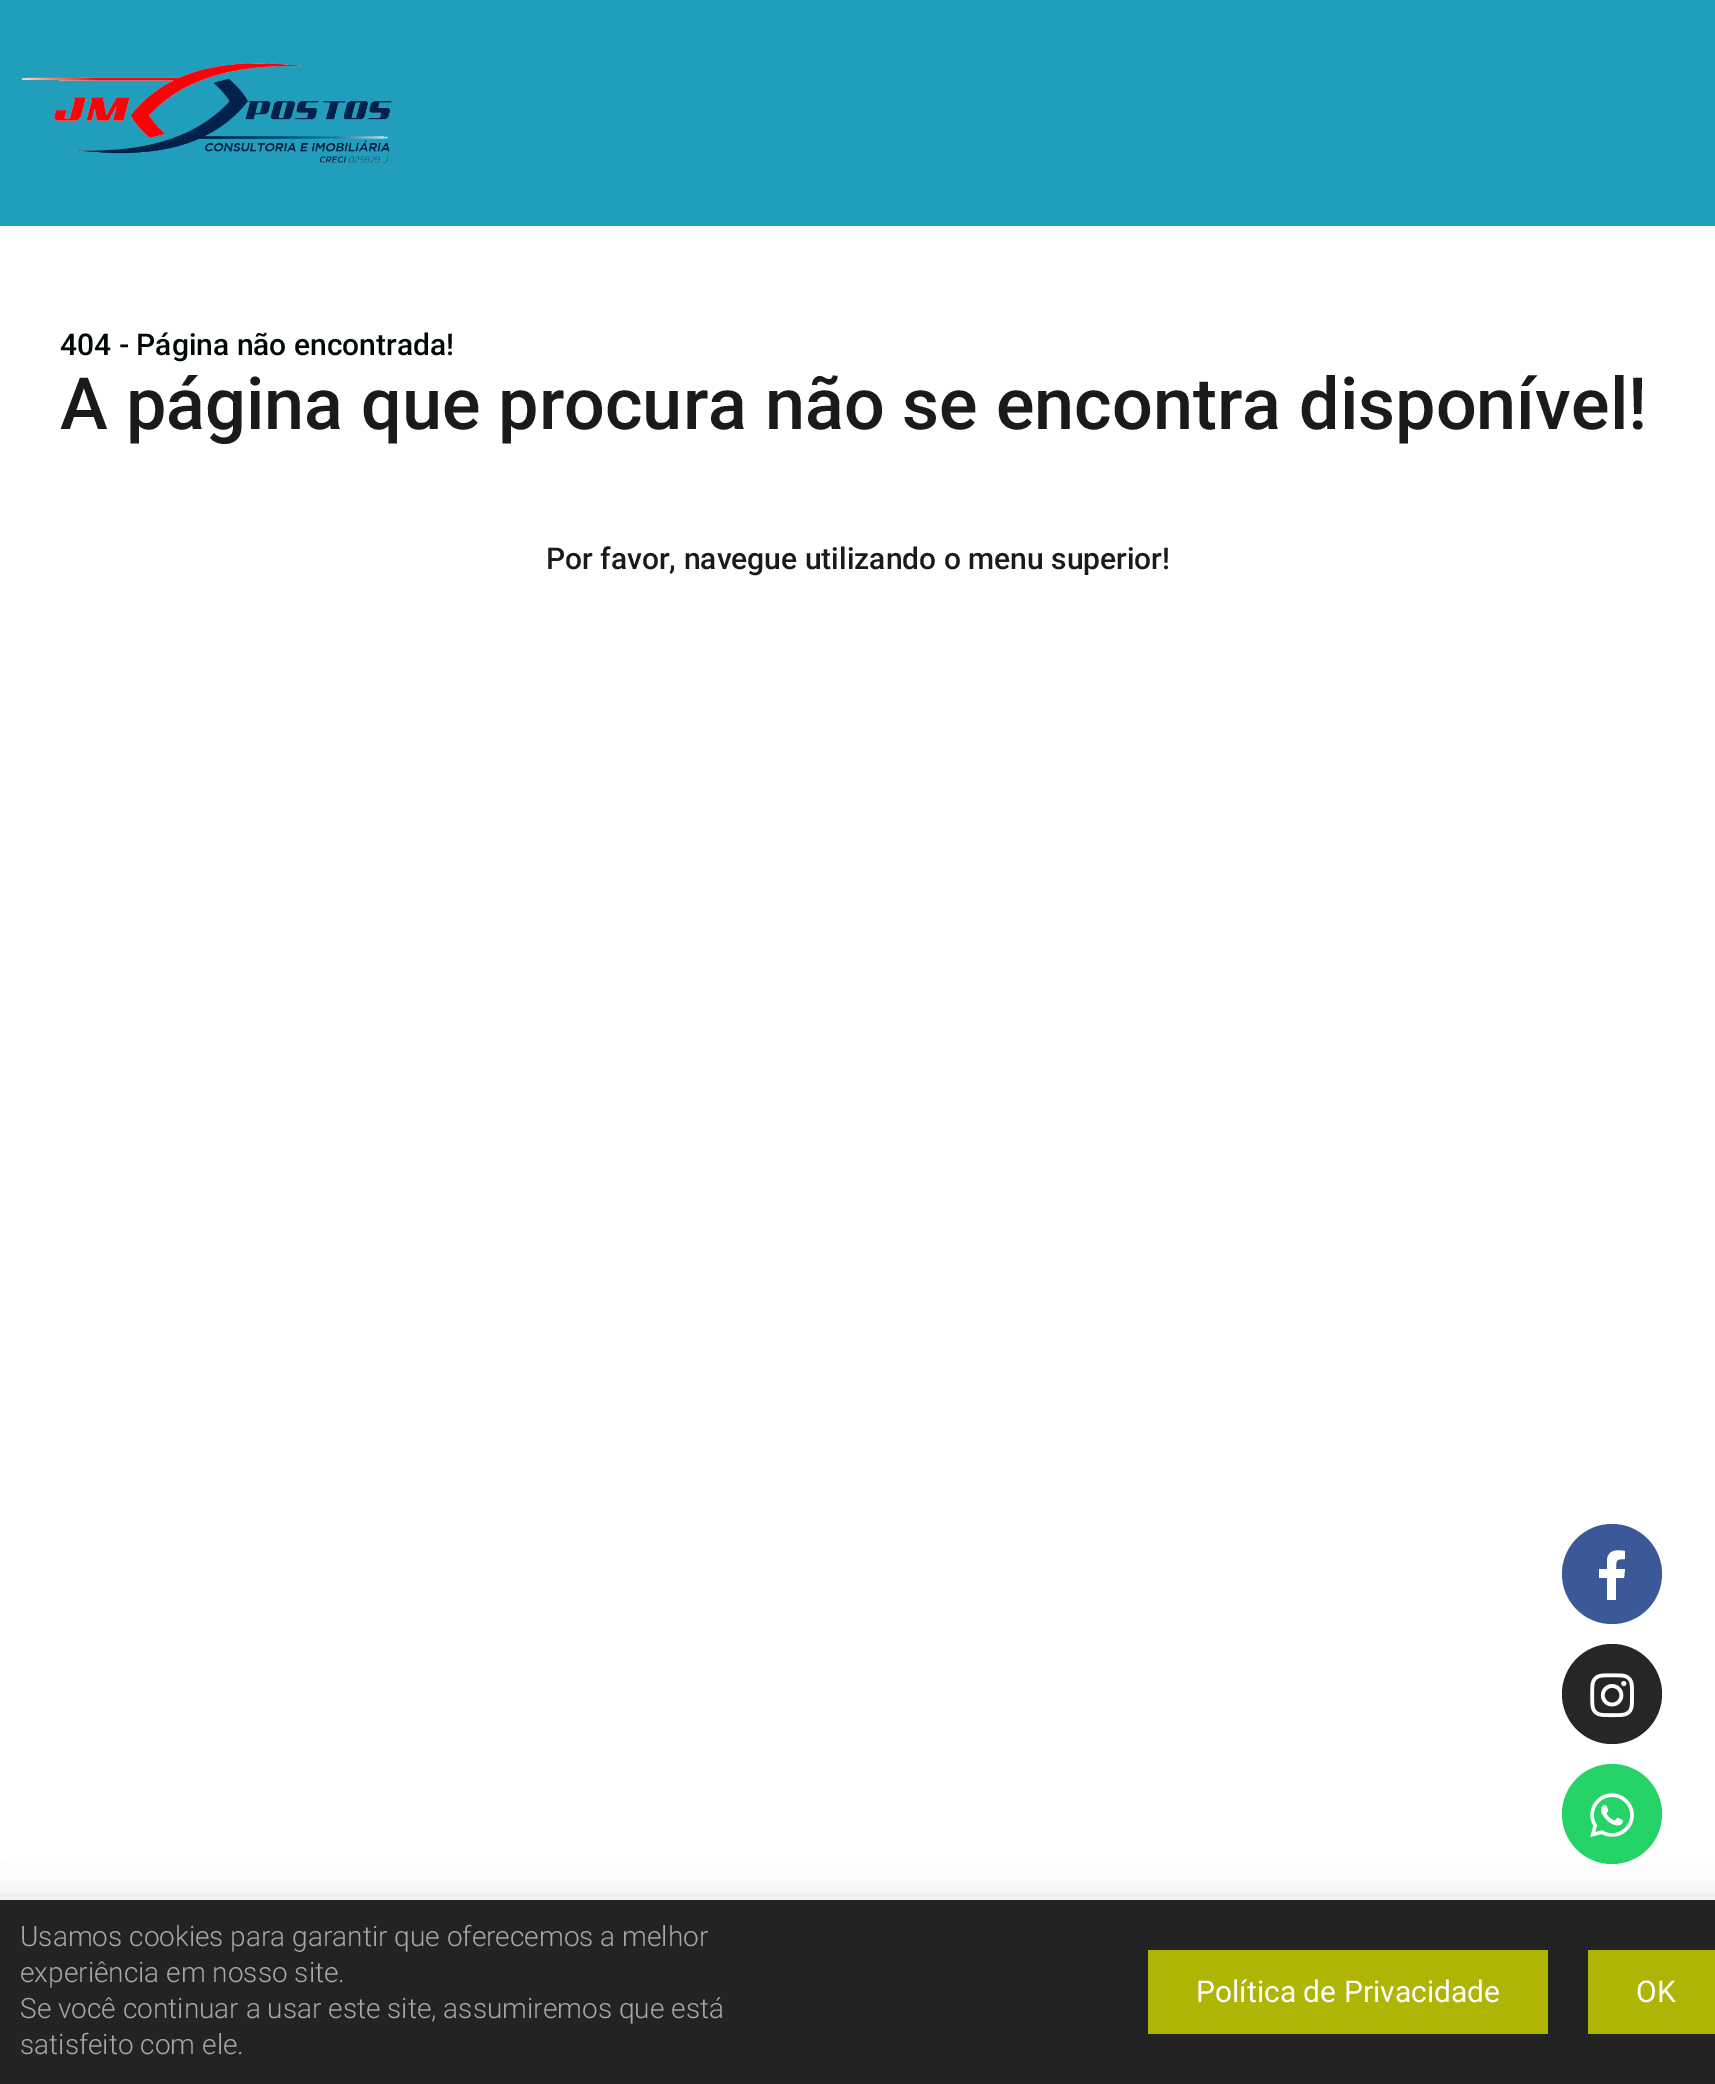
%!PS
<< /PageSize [1715 2084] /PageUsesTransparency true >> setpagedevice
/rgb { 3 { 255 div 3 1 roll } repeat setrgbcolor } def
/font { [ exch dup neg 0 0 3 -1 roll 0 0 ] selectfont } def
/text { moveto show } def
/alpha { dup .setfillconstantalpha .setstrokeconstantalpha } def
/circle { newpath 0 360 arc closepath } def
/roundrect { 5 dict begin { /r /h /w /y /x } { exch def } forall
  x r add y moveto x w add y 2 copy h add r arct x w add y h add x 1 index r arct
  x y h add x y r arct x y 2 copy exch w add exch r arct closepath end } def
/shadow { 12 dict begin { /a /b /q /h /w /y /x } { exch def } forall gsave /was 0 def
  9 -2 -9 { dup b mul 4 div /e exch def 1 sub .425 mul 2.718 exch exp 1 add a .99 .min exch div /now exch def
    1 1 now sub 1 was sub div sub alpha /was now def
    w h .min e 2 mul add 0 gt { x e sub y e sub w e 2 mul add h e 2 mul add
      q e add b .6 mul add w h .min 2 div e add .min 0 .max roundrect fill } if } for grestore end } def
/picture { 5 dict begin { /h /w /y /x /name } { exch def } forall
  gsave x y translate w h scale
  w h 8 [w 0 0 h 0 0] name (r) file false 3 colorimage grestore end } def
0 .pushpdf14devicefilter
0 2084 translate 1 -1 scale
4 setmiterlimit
255 255 255 rgb
0 0 1715 2084 rectfill
33 158 188 rgb
0 0 1715 226 rectfill
(img_01.rgb) 22 63 370 100 picture
59 89 152 rgb
1612 1574 50 circle fill
255 255 255 rgb
1624 1578 moveto -8 0 rlineto 0 22 rlineto -9 0 rlineto 0 -22 rlineto -8 0 rlineto 0 -9 rlineto 8 0 rlineto 0 -9 rlineto 1 -11 11 -10 18 -9 rcurveto 0 8 rlineto -9 0 -9 1 -9 10 rcurveto 9 0 rlineto closepath fill
38 38 38 rgb
1612 1694 50 circle fill
(img_02.rgb) 1590 1673 44 45 picture
37 211 102 rgb
1612 1814 50 circle fill
(img_03.rgb) 1590 1793 44 45 picture
0 0 0 rgb
-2 1910 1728 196 0 23 0.2 shadow
35 35 35 rgb
0 1900 1715 184 rectfill
175 181 5 rgb
1148 1950 400 84 rectfill
1588 1950 127 84 rectfill
/Roboto-Medium 30 font
0 10 3 rgb
(404 - Página não encontrada!) 60 355 text
/Roboto-Medium 72 font
26 26 26 rgb
(A página que procura não se encontra disponível!) 60 429 text
/Roboto-Medium 30 font
(Por favor, navegue utilizando o menu superior!) 546 569 text
/Roboto-Light 28 font
168 168 168 rgb
(Usamos cookies para garantir que oferecemos a melhor) 20 1946 text
(experiência em nosso site.) 20 1982 text
(Se você continuar a usar este site, assumiremos que está) 20 2018 text
(satisfeito com ele.) 20 2054 text
/Roboto-Regular 30 font
255 255 255 rgb
(Política de Privacidade) 1196 2002 text
(OK) 1636 2002 text
.poppdf14devicefilter showpage
